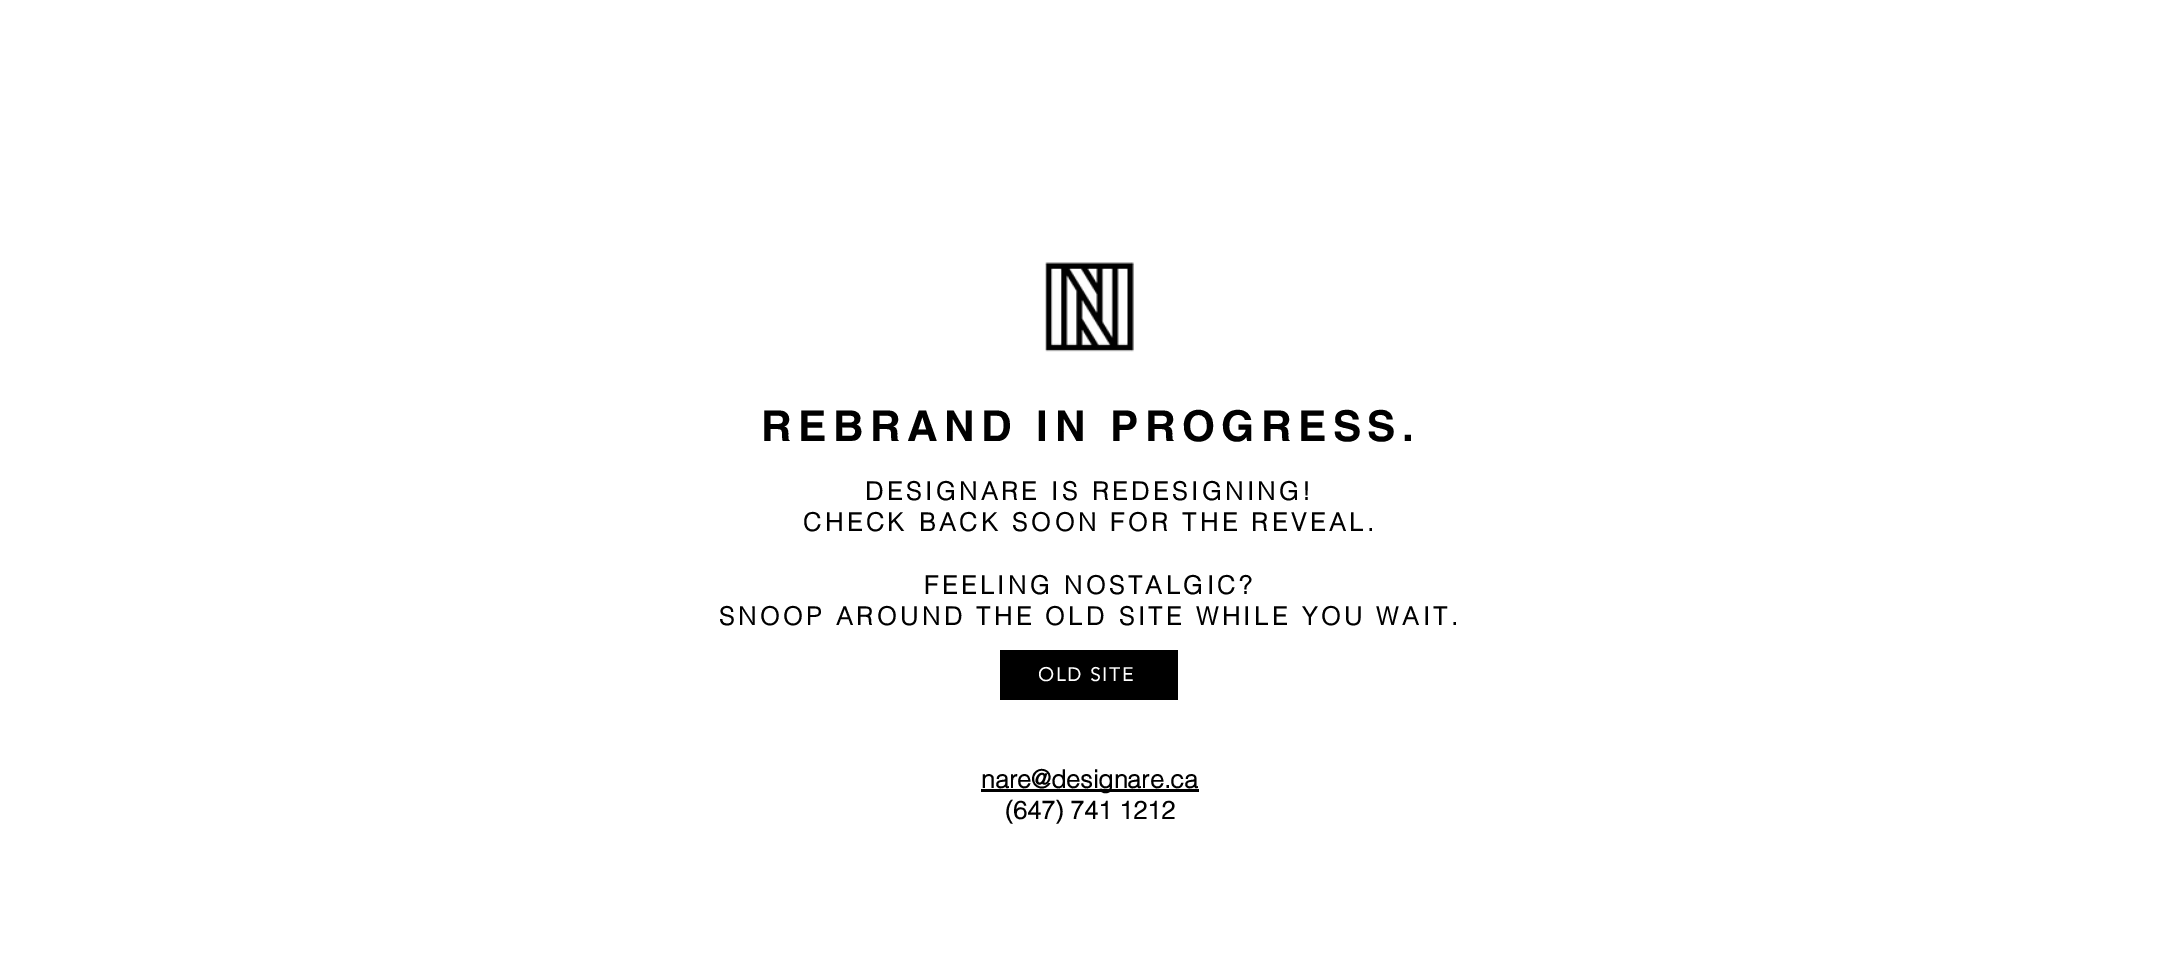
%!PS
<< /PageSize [2179 965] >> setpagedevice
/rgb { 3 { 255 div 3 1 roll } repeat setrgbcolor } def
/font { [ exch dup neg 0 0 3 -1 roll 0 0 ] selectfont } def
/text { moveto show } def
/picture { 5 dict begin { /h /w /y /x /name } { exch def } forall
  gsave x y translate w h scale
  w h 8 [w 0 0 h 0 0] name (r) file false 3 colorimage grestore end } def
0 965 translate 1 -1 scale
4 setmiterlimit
255 255 255 rgb
0 0 2179 965 rectfill
(img_01.rgb) 1045 262 89 90 picture
0 0 0 rgb
1000 650 178 50 rectfill
981 789 218 3 rectfill
/helvetica-Bold 42.5 font
761 441 moveto 6.4 0 (REBRAND IN PROGRESS.) ashow
/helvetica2-Bold 25 font
865 500 moveto 3.75 0 (DESIGNARE IS REDESIGNING!) ashow
803 531 moveto 3.75 0 (CHECK BACK SOON FOR THE REVEAL.) ashow
924 594 moveto 3.75 0 (FEELING NOSTALGIC?) ashow
719 625 moveto 3.75 0 (SNOOP AROUND THE OLD SITE WHILE YOU WAIT.) ashow
/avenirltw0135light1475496-Bold 18.75 font
255 255 255 rgb
1038 681 moveto 2 0 (OLD SITE) ashow
/helvetica2-Bold 25 font
0 0 0 rgb
(nare@designare.ca) 981 788 text
(\(647\) 741 1212) 1005 819 text
showpage
